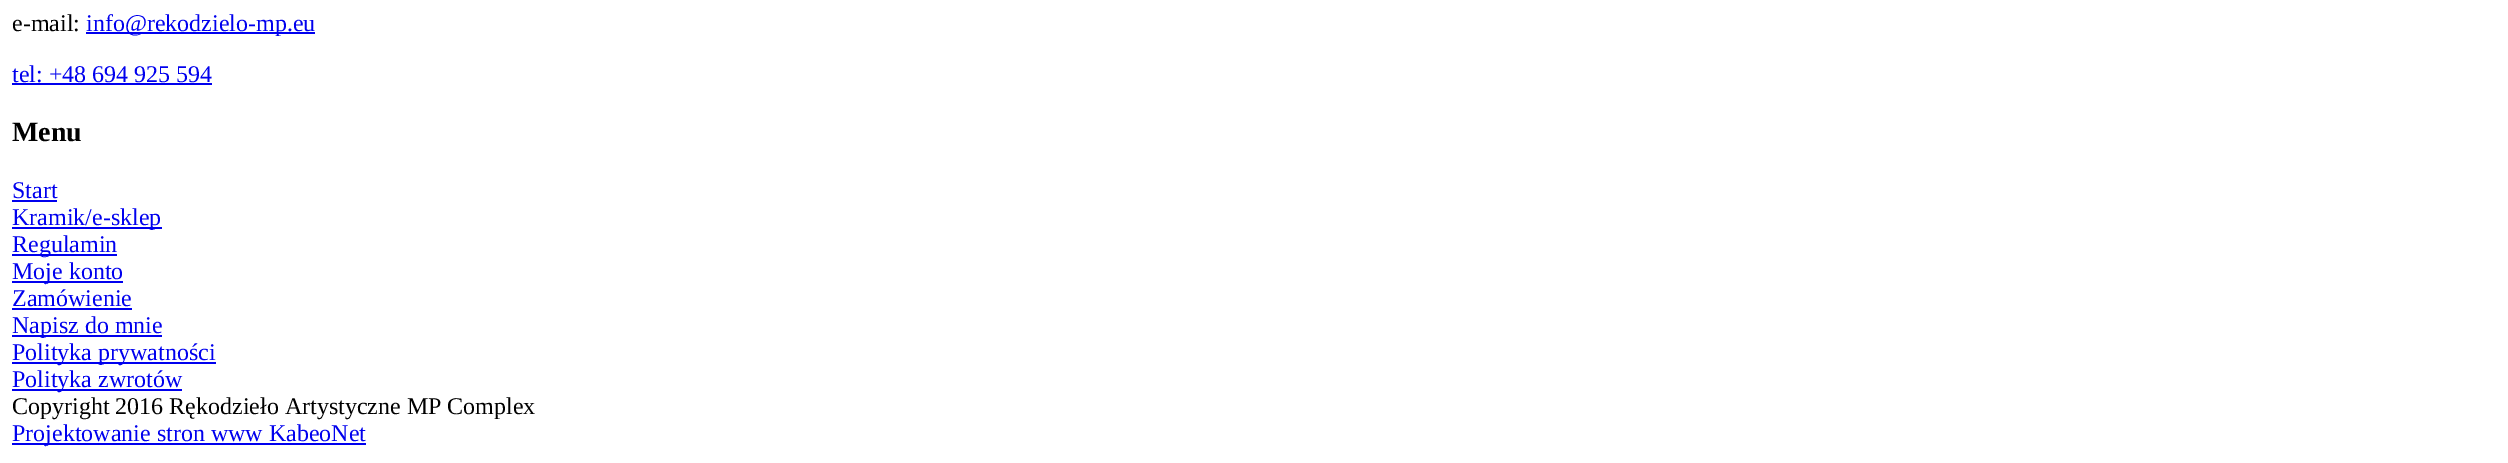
%!PS
<< /PageSize [2508 463] >> setpagedevice
/rgb { 3 { 255 div 3 1 roll } repeat setrgbcolor } def
/font { [ exch dup neg 0 0 3 -1 roll 0 0 ] selectfont } def
/text { moveto show } def
0 463 translate 1 -1 scale
4 setmiterlimit
255 255 255 rgb
0 0 2508 463 rectfill
0 0 238 rgb
86 32 229 2 rectfill
12 83 200 2 rectfill
12 200 45 2 rectfill
12 227 150 2 rectfill
12 254 105 2 rectfill
12 281 111 2 rectfill
12 308 120 2 rectfill
12 335 150 2 rectfill
12 362 204 2 rectfill
12 389 170 2 rectfill
12 443 354 2 rectfill
/LiberationSerif-Regular 24 font
0 0 0 rgb
(e-mail:) 12 31 text
0 0 238 rgb
(info@rekodzielo-mp.eu) 86 31 text
(tel: +48 694 925 594) 12 82 text
/LiberationSerif-Bold 28 font
0 0 0 rgb
(Menu) 12 141 text
/LiberationSerif-Regular 24 font
0 0 238 rgb
(Start) 12 198 text
(Kramik/e-sklep) 12 225 text
(Regulamin) 12 252 text
(Moje konto) 12 279 text
(Zamówienie) 12 306 text
(Napisz do mnie) 12 333 text
(Polityka prywatności) 12 360 text
(Polityka zwrotów) 12 387 text
0 0 0 rgb
(Copyright 2016 Rękodzieło Artystyczne MP Complex) 12 414 text
0 0 238 rgb
(Projektowanie stron www KabeoNet) 12 441 text
showpage
